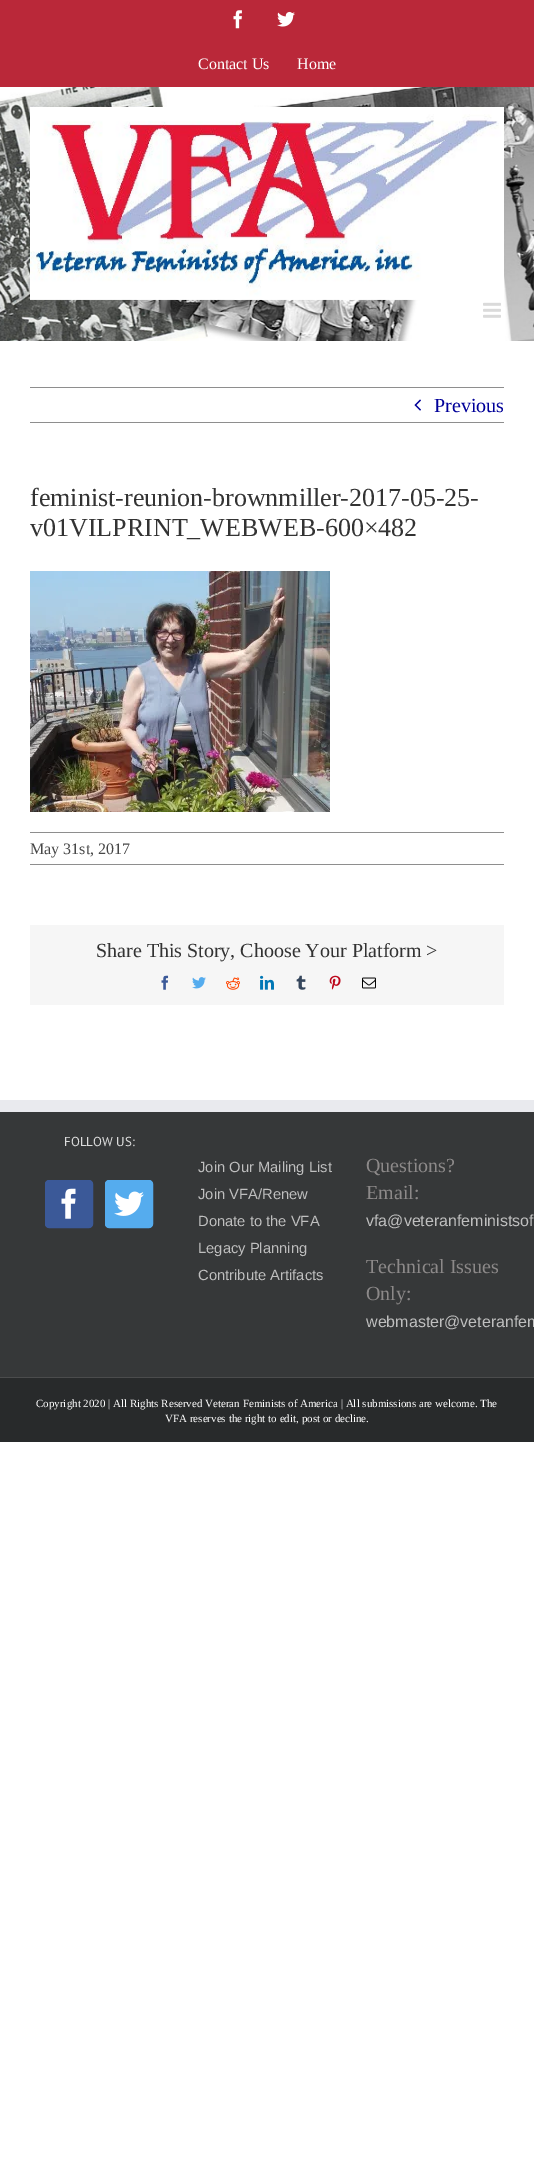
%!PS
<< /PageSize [534 2183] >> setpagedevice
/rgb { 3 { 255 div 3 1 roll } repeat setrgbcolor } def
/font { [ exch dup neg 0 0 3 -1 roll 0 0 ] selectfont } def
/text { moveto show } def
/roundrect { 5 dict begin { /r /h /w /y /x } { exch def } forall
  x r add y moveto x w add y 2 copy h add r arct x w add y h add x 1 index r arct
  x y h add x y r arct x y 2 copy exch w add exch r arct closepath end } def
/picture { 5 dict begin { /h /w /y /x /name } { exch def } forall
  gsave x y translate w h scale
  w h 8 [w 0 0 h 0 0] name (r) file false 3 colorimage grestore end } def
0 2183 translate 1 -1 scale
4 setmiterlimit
255 255 255 rgb
0 0 534 2183 rectfill
186 40 57 rgb
0 0 534 87 rectfill
(img_01.rgb) 233 10 9 19 picture
(img_02.rgb) 277 11 18 16 picture
(img_03.rgb) 0 87 534 254 picture
(img_04.rgb) 30 107 474 193 picture
(img_05.rgb) 483 302 18 16 picture
142 142 142 rgb
30 387 474 1 rectfill
30 422 474 1 rectfill
(img_06.rgb) 414 399 7 12 picture
(img_07.rgb) 30 571 300 241 picture
30 832 474 1 rectfill
30 864 474 1 rectfill
246 246 246 rgb
30 925 474 80 rectfill
(img_08.rgb) 161 975 8 15 picture
(img_09.rgb) 192 977 14 12 picture
(img_10.rgb) 226 977 14 13 picture
(img_11.rgb) 260 975 14 15 picture
(img_12.rgb) 296 975 10 15 picture
(img_13.rgb) 329 975 12 15 picture
(img_14.rgb) 362 977 14 12 picture
54 56 57 rgb
0 1112 534 265 rectfill
233 234 238 rgb
0 1100 534 12 rectfill
59 89 152 rgb
45.5 1180.5 47 47 3.5 roundrect gsave fill grestore
stroke
(img_15.rgb) 61 1188 15 31 picture
85 172 238 rgb
105.5 1180.5 47 47 3.5 roundrect gsave fill grestore
stroke
(img_16.rgb) 114 1191 30 25 picture
40 42 43 rgb
0 1378 534 64 rectfill
75 76 77 rgb
0 1377 534 1 rectfill
/LiberationSerif-Regular 16 font
255 255 255 rgb
(Contact Us) 198 69 text
(Home) 297 69 text
/LiberationSerif-Regular 20 font
0 0 153 rgb
(Previous) 434 412 text
/LiberationSerif-Regular 26 font
51 51 51 rgb
(feminist-reunion-brownmiller-2017-05-25-) 30 506 text
(v01VILPRINT_WEBWEB-600×482) 30 536 text
/LiberationSerif-Regular 16 font
71 71 71 rgb
(May 31st, 2017) 30 854 text
/LiberationSerif-Regular 20 font
51 51 51 rgb
(Share This Story, Choose Your Platform >) 96 957 text
/PTSans-Regular 13 font
221 221 221 rgb
(FOLLOW US:) 64 1146 text
/LiberationSans-Regular 14.75 font
191 191 191 rgb
(Join Our Mailing List) 198 1172 text
(Join VFA/Renew) 198 1199 text
(Donate to the VFA) 198 1226 text
(Legacy Planning) 198 1253 text
(Contribute Artifacts) 198 1280 text
/LiberationSerif-Regular 20 font
140 137 137 rgb
(Questions?) 366 1172 text
(Email:) 366 1199 text
/LiberationSans-Regular 16 font
191 191 191 rgb
(vfa@veteranfeministsof) 366 1226 text
/LiberationSerif-Regular 20 font
140 137 137 rgb
(Technical Issues) 366 1273 text
(Only:) 366 1300 text
/LiberationSans-Regular 16 font
191 191 191 rgb
(webmaster@veteranfem) 366 1327 text
/LiberationSerif-Regular 11 font
255 255 255 rgb
(Copyright 2020 | All Rights Reserved Veteran Feminists of America | All submissions are welcome. The) 36 1407 text
(VFA reserves the right to edit, post or decline.) 165 1422 text
showpage
